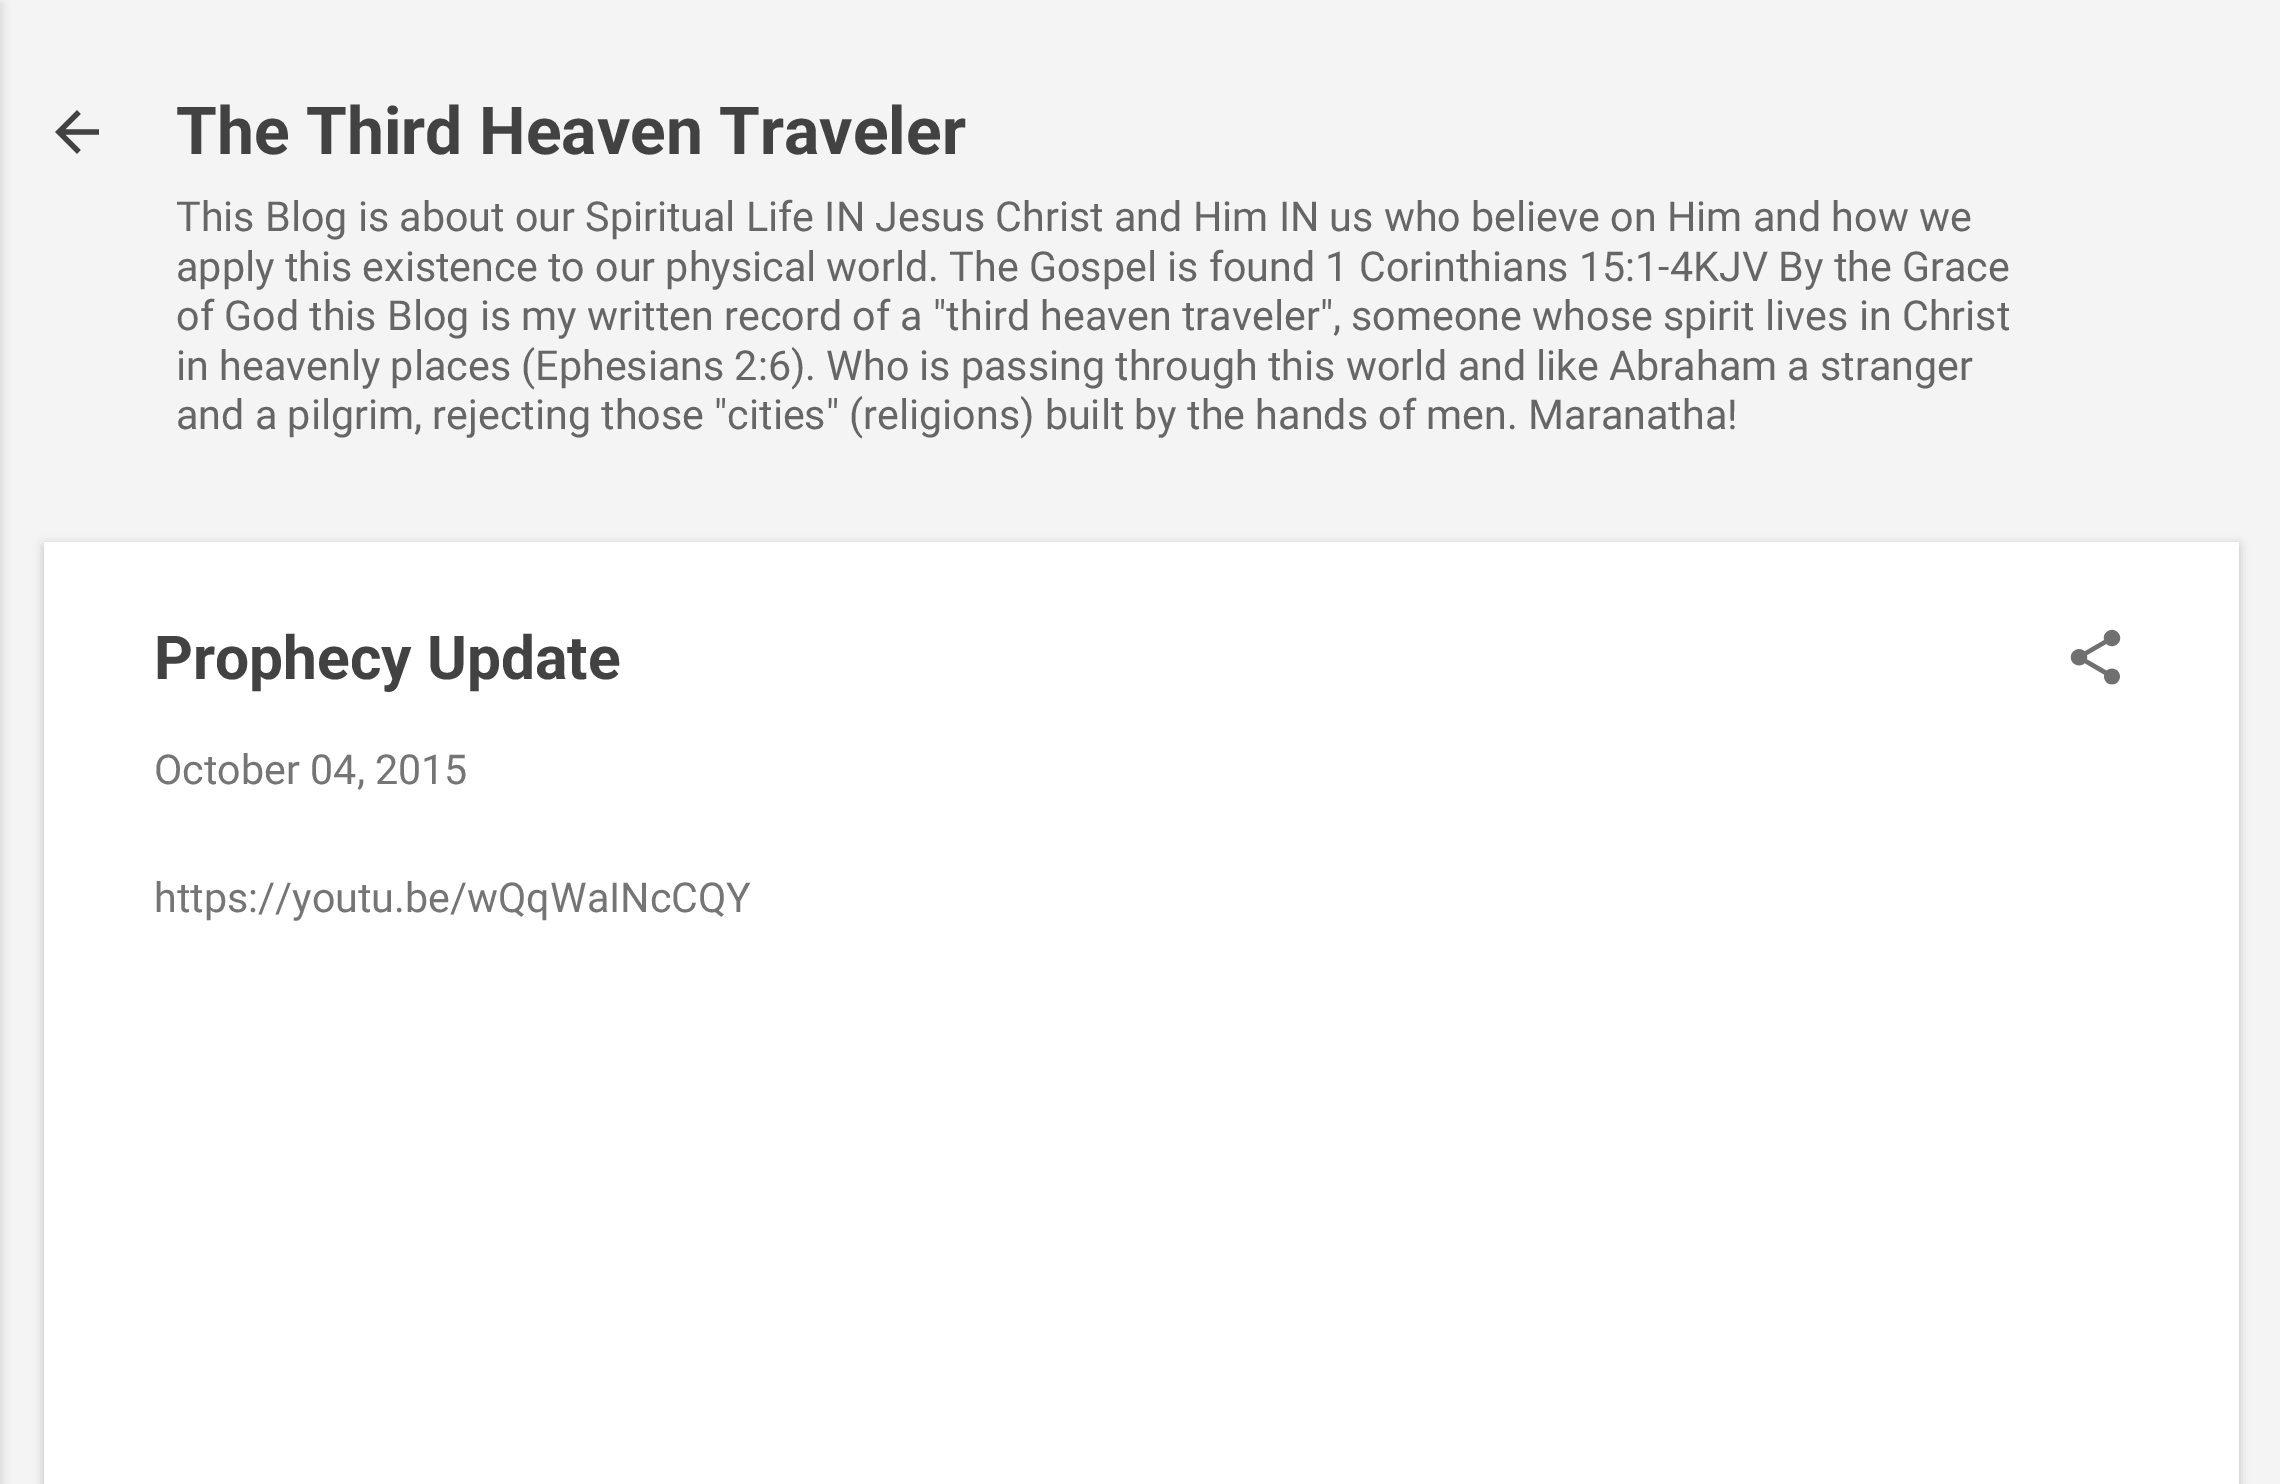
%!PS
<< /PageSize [2280 1484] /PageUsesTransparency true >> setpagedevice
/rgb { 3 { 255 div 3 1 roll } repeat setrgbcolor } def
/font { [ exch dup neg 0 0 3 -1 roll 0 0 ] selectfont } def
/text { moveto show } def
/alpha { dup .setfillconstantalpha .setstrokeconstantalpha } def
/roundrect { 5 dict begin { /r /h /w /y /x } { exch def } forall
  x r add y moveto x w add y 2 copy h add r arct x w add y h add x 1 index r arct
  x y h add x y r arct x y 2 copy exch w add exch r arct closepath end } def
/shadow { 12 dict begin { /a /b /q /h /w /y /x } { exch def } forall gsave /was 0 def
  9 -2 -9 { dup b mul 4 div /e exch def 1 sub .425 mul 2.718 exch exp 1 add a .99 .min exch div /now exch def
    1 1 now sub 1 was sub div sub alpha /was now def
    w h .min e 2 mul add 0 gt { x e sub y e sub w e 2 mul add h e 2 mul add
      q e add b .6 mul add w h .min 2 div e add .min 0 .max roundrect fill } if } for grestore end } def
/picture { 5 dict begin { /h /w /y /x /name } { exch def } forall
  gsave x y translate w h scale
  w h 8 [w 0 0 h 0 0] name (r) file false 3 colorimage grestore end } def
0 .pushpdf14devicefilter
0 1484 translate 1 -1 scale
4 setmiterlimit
244 244 244 rgb
0 0 2280 1484 rectfill
0 0 0 rgb
-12 3 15 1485 0 4 0.1 shadow
(img_01.rgb) 55 110 44 44 picture
60 64 67 rgb
44 545 2195 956 0 5.5 0.3 shadow
255 255 255 rgb
44 542 2195 942 rectfill
(img_02.rgb) 2070 629 51 56 picture
/Roboto-Bold 66 font
66 66 66 rgb
(The Third Heaven Traveler) 176 154 text
/Roboto-Regular 41.25 font
102 102 102 rgb
(This Blog is about our Spiritual Life IN Jesus Christ and Him IN us who believe on Him and how we) 176 231 text
(apply this existence to our physical world. The Gospel is found 1 Corinthians 15:1-4KJV By the Grace) 176 281 text
(of God this Blog is my written record of a "third heaven traveler", someone whose spirit lives in Christ) 176 330 text
(in heavenly places \(Ephesians 2:6\). Who is passing through this world and like Abraham a stranger) 176 380 text
(and a pilgrim, rejecting those "cities" \(religions\) built by the hands of men. Maranatha!) 176 429 text
/Roboto-Bold 60.5 font
66 66 66 rgb
(Prophecy Update) 154 679 text
/Roboto-Regular 41.25 font
117 117 117 rgb
(October 04, 2015) 154 784 text
(https://youtu.be/wQqWaINcCQY) 154 912 text
.poppdf14devicefilter showpage
